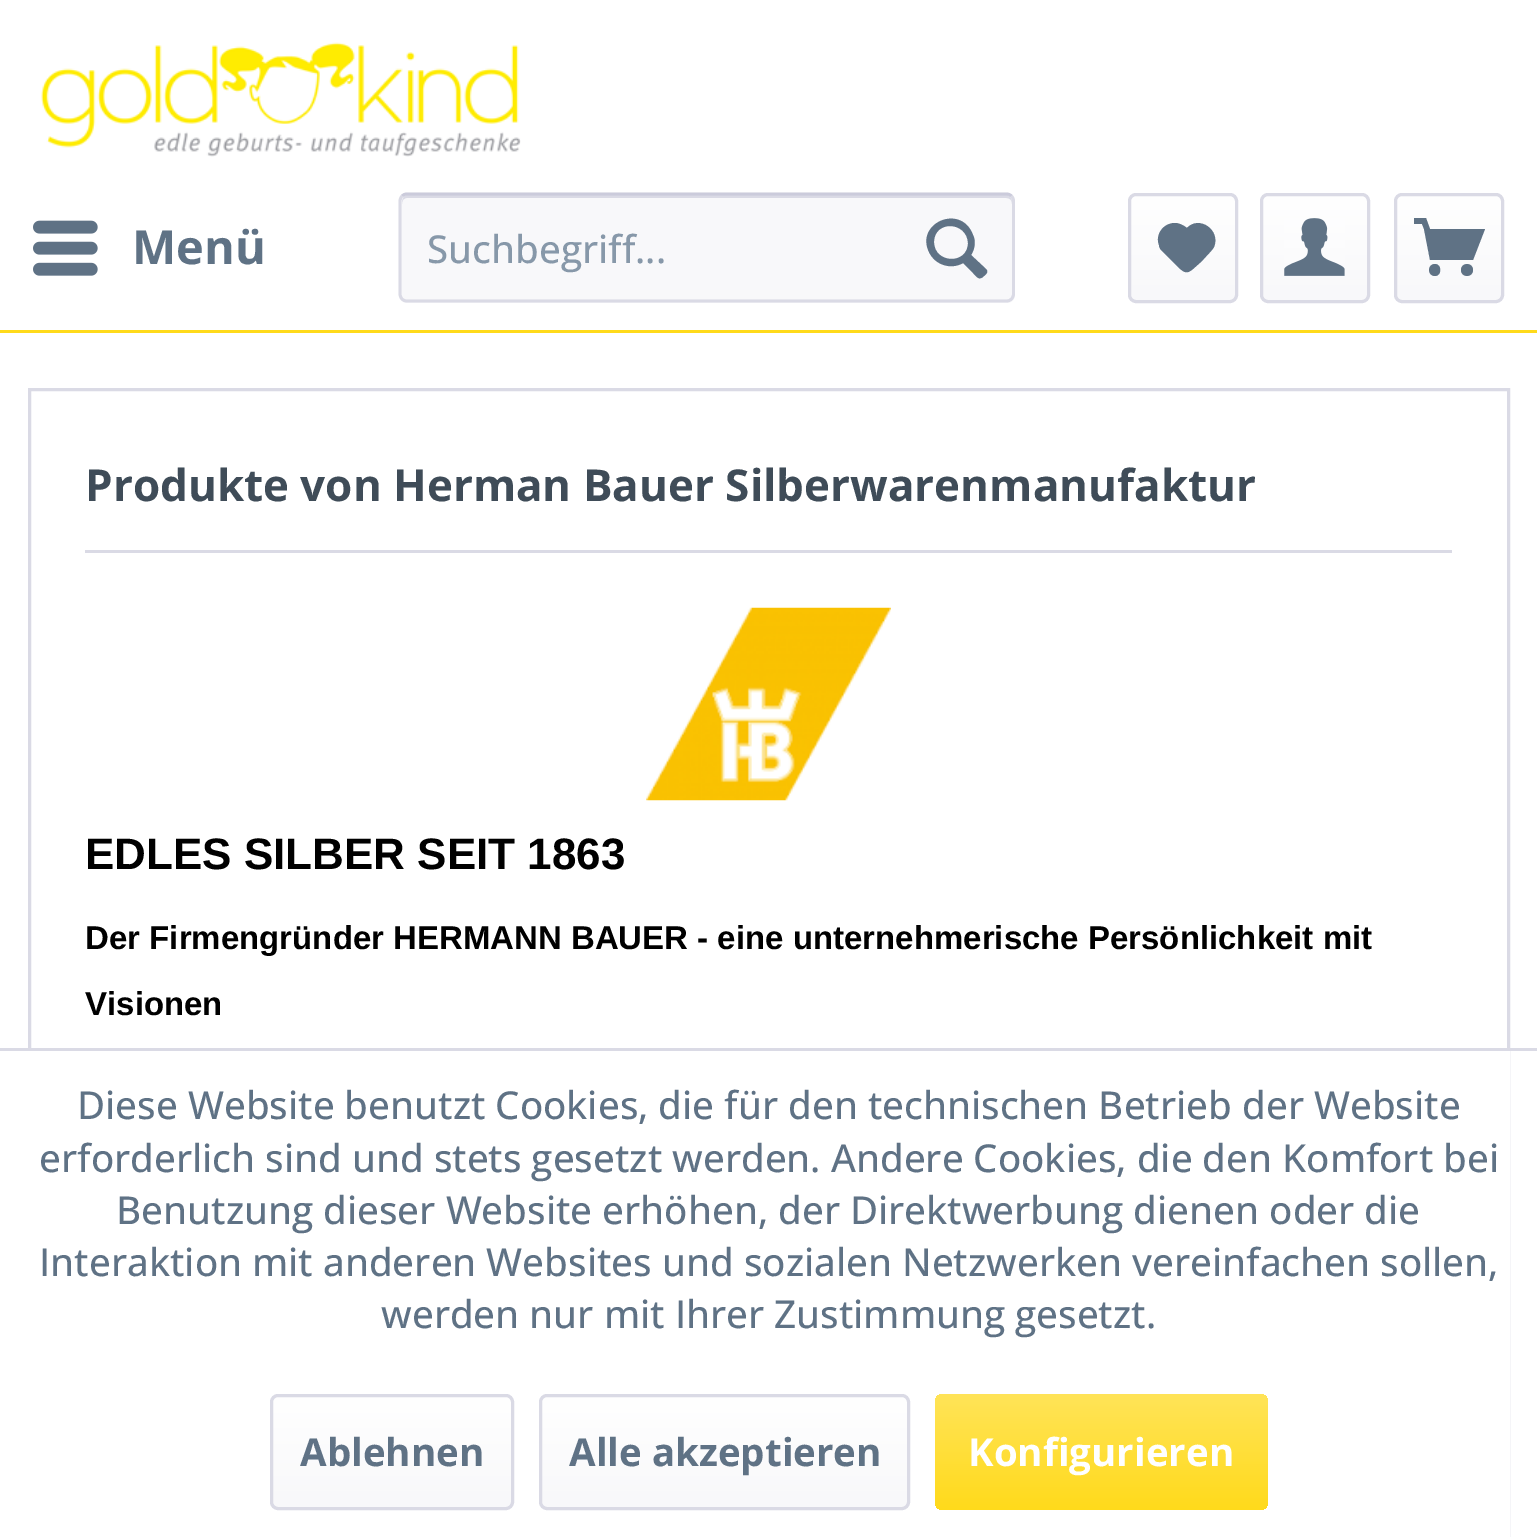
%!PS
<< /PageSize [1537 1537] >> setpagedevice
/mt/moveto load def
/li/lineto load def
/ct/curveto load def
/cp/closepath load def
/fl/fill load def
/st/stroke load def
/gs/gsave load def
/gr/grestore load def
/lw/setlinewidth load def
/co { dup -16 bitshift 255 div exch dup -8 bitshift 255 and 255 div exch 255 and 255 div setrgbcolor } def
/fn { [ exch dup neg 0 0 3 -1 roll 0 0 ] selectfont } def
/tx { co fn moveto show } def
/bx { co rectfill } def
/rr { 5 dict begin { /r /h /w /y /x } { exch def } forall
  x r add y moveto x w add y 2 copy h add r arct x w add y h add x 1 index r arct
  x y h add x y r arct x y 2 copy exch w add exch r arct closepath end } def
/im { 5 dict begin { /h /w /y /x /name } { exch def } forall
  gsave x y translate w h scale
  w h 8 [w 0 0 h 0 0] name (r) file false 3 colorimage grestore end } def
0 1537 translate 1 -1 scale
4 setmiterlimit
0 0 1537 1537 16#FFFFFF bx
0 330 1537 3 16#FFDA1B bx
(media/1.raw) 41 42 480 115 im
(media/2.raw) 33 220 65 56 im
16#F8F8FA co
399 193 616 110 8 rr fl
16#DADAE5 co
407 198 mt 1006 198 li 1010 198 1012 200 1012 204 ct 1012 200 1011 195 1006 195 ct 408 195 li 403 195 402 200 402 204 ct 402 200 404 198 407 198 ct cp fl
16#CBCBDB co
2.8 lw
402 196 mt 403.5 194.5 405 194 407 194 ct 1006.5 194 li 1008.5 194 1010 194.5 1011.5 196 ct st
16#DADAE5 co
1011.5 196 mt 1012.5 197 1013.5 199 1013.5 201 ct 1013.5 294 li 1013.5 296 1012.5 298 1011.5 299 ct 1010 300.5 1008.5 301 1006.5 301 ct 407 301 li 405 301 403.5 300.5 402 299 ct 401 298 400 296 400 294 ct 400 201 li 400 199 401 197 402 196 ct st
16#5F7285 co
986 269 mt 971 255 li 975 249 976 241 973 235 ct 961 203 915 223 929 252 ct 935 265 951 270 963 263 ct 973 273 li 977 277 979 281 984 276 ct 986 274 989 272 986 269 ct cp 934 242 mt 934 220 967 221 968 243 ct 968 265 934 264 934 242 ct cp fl
gs 1130 195 105 105 6 rr clip newpath
<< /ShadingType 2 /ColorSpace /DeviceRGB /Coords [1183 195 1183 300] /Extend [true true] /Function << /FunctionType 2 /Domain [0 1] /C0 [1 1 1] /C1 [.973 .973 .98] /N 1 >> >> shfill gr
16#DADAE5 co
3 lw
1129.5 194.5 107 107 6.5 rr st
16#5F7285 co
1175 223 mt 1163 223 1155 235 1159 245 ct 1159 248 1161 250 1162 251 ct 1179 268 li 1185 273 1187 274 1193 269 ct 1202 261 li 1206 256 1211 252 1214 247 ct 1221 230 1199 215 1187 228 ct 1183 225 1179 223 1175 223 ct cp fl
gs 1262 195 105 105 6 rr clip newpath
<< /ShadingType 2 /ColorSpace /DeviceRGB /Coords [1315 195 1315 300] /Extend [true true] /Function << /FunctionType 2 /Domain [0 1] /C0 [1 1 1] /C1 [.973 .973 .98] /N 1 >> >> shfill gr
16#DADAE5 co
1261.5 194.5 107 107 6.5 rr st
(media/3.raw) 1284 218 61 58 im
gs 1397 195 105 105 6 rr clip newpath
<< /ShadingType 2 /ColorSpace /DeviceRGB /Coords [1449 195 1449 300] /Extend [true true] /Function << /FunctionType 2 /Domain [0 1] /C0 [1 1 1] /C1 [.973 .973 .98] /N 1 >> >> shfill gr
1395.5 194.5 107 107 6.5 rr st
16#5F7285 co
1430 260 mt 1473 260 li 1485 229 li 1430 229 li 1426 218 li 1414 218 li 1414 224 li 1422 224 li 1424 229 li cp 1435 264 mt 1427 264 1427 276 1435 276 ct 1442 276 1442 264 1435 264 ct cp 1473 270 mt 1473 278 1461 278 1461 270 ct 1461 262 1473 262 1473 270 ct cp fl
16#DADAE5 co
29.5 389.5 1479 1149 rectstroke
85 550 1367 3 16#DADAE5 bx
(media/4.raw) 646 607 245 194 im
28 1051 1482 486 16#FFFFFF bx
0 1048 1537 3 16#DADAE5 bx
gs 272 1397 240 110 6 rr clip newpath
<< /ShadingType 2 /ColorSpace /DeviceRGB /Coords [392 1397 392 1507] /Extend [true true] /Function << /FunctionType 2 /Domain [0 1] /C0 [1 1 1] /C1 [.973 .973 .98] /N 1 >> >> shfill gr
271.5 1395.5 241 113 6.5 rr st
gs 542 1397 366 110 6 rr clip newpath
<< /ShadingType 2 /ColorSpace /DeviceRGB /Coords [725 1397 725 1507] /Extend [true true] /Function << /FunctionType 2 /Domain [0 1] /C0 [1 1 1] /C1 [.973 .973 .98] /N 1 >> >> shfill gr
540.5 1395.5 368 113 6.5 rr st
gs 935 1394 333 116 8 rr clip newpath
<< /ShadingType 2 /ColorSpace /DeviceRGB /Coords [1101 1394 1101 1510] /Extend [true true] /Function << /FunctionType 2 /Domain [0 1] /C0 [1 .894 .345] /C1 [1 .855 .106] /N 1 >> >> shfill gr
(Menü) 132 264 /OpenSans-Bold 47 16#5F7285 tx
(Suchbegriff...) 427 263 /OpenSans-Medium 38.5 16#8798A9 tx
(Produkte von Herman Bauer Silberwarenmanufaktur) 85 501 /OpenSans-Bold 44 16#3F4C58 tx
(EDLES SILBER SEIT 1863) 85 869 /LiberationSans-Bold 44 16#000000 tx
(Der Firmengründer HERMANN BAUER - eine unternehmerische Persönlichkeit mit) 85 949 /LiberationSans-Bold 33 16#000000 tx
(Visionen) 85 1015 /LiberationSans-Bold 33 16#000000 tx
(Diese Website benutzt Cookies, die für den technischen Betrieb der Website) 77 1119 /OpenSans-Medium 38.5 16#5F7285 tx
(erforderlich sind und stets gesetzt werden. Andere Cookies, die den Komfort bei) 39 1172 /OpenSans-Medium 38.5 16#5F7285 tx
(Benutzung dieser Website erhöhen, der Direktwerbung dienen oder die) 116 1224 /OpenSans-Medium 38.5 16#5F7285 tx
(Interaktion mit anderen Websites und sozialen Netzwerken vereinfachen sollen,) 39 1276 /OpenSans-Medium 38.5 16#5F7285 tx
(werden nur mit Ihrer Zustimmung gesetzt.) 381 1328 /OpenSans-Medium 38.5 16#5F7285 tx
(Ablehnen) 300 1466 /OpenSans-Bold 38.5 16#5F7285 tx
(Alle akzeptieren) 569 1466 /OpenSans-Bold 38.5 16#5F7285 tx
(Konfigurieren) 968 1466 /OpenSans-Bold 38.5 16#FFFFFF tx
showpage
